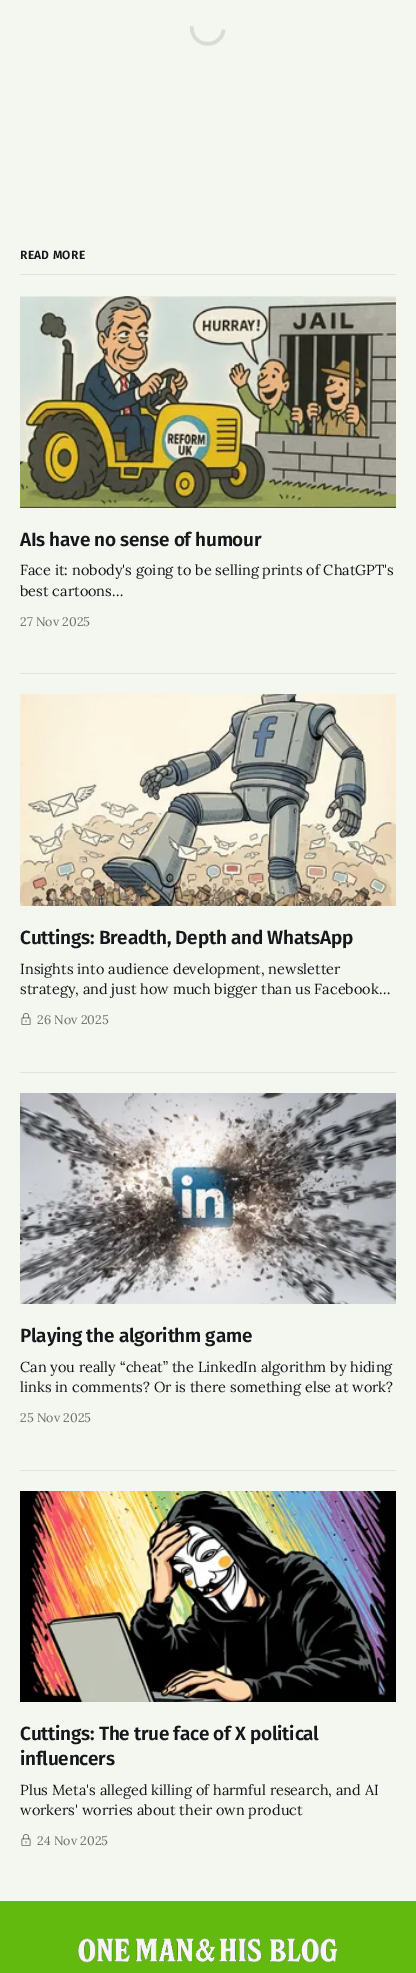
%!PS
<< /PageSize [416 1973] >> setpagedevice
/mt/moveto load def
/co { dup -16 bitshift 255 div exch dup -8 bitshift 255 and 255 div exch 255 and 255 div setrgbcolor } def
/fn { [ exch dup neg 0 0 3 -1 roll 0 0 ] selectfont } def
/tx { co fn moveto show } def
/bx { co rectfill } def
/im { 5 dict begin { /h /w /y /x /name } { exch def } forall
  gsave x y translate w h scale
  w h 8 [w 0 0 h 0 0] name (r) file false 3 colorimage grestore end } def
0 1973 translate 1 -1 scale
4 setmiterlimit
0 0 416 1973 16#F3F7EF bx
(media/1.raw) 190 26 36 20 im
20 274 376 1 16#E0E3DC bx
(media/2.raw) 20 296 376 212 im
20 673 376 1 16#E0E3DC bx
(media/3.raw) 20 694 376 212 im
(media/4.raw) 21 1013 10 12 im
20 1072 376 1 16#E0E3DC bx
(media/5.raw) 20 1093 376 211 im
20 1470 376 1 16#E0E3DC bx
(media/6.raw) 20 1491 376 211 im
(media/4.raw) 21 1834 10 12 im
0 1901 416 72 16#61BA0D bx
(media/7.raw) 77 1938 261 25 im
/FiraSans-SemiBold 12 fn
16#15171A co
20 259 mt .25 0 (READ MORE) ashow
/FiraSans-SemiBold 19 fn
20 546 mt -.25 0 (AIs have no sense of humour) ashow
(Face it: nobody's going to be selling prints of ChatGPT's) 20 575 /Lora-Regular 14.5 16#15171A tx
(best cartoons…) 20 596 /Lora-Regular 14.5 16#15171A tx
(27 Nov 2025) 20 626 /Lora-Regular 12.5 16#6D6F6C tx
/FiraSans-SemiBold 19 fn
16#15171A co
20 944 mt -.25 0 (Cuttings: Breadth, Depth and WhatsApp) ashow
(Insights into audience development, newsletter) 20 974 /Lora-Regular 14.5 16#15171A tx
(strategy, and just how much bigger than us Facebook…) 20 994 /Lora-Regular 14.5 16#15171A tx
(26 Nov 2025) 37 1024 /Lora-Regular 12.5 16#6D6F6C tx
/FiraSans-SemiBold 19 fn
16#15171A co
20 1342 mt -.25 0 (Playing the algorithm game) ashow
(Can you really “cheat” the LinkedIn algorithm by hiding) 20 1372 /Lora-Regular 14.5 16#15171A tx
(links in comments? Or is there something else at work?) 20 1392 /Lora-Regular 14.5 16#15171A tx
(25 Nov 2025) 20 1422 /Lora-Regular 12.5 16#6D6F6C tx
/FiraSans-SemiBold 19 fn
16#15171A co
20 1740 mt -.25 0 (Cuttings: The true face of X political) ashow
20 1765 mt -.25 0 (influencers) ashow
(Plus Meta's alleged killing of harmful research, and AI) 20 1795 /Lora-Regular 14.5 16#15171A tx
(workers' worries about their own product) 20 1815 /Lora-Regular 14.5 16#15171A tx
(24 Nov 2025) 37 1845 /Lora-Regular 12.5 16#6D6F6C tx
showpage
